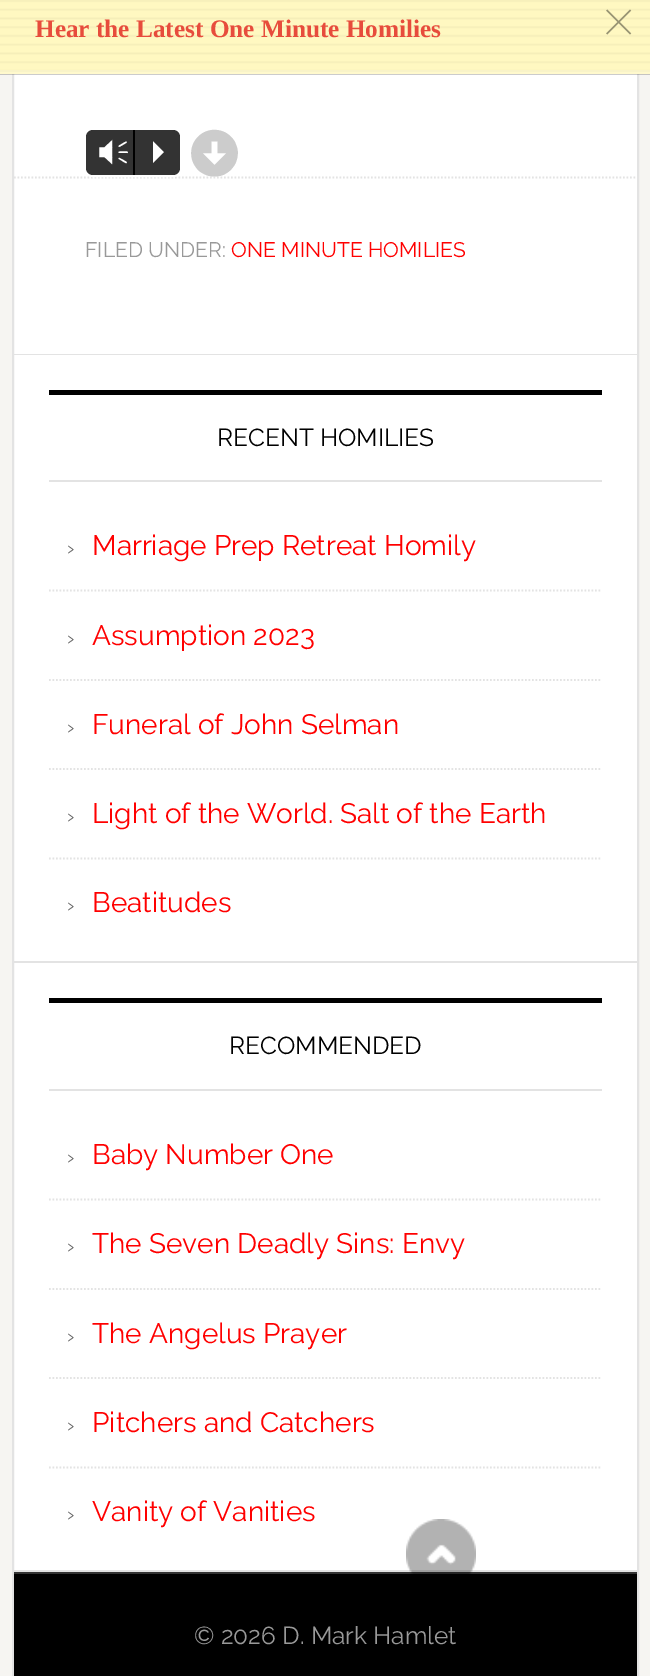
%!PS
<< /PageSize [650 1676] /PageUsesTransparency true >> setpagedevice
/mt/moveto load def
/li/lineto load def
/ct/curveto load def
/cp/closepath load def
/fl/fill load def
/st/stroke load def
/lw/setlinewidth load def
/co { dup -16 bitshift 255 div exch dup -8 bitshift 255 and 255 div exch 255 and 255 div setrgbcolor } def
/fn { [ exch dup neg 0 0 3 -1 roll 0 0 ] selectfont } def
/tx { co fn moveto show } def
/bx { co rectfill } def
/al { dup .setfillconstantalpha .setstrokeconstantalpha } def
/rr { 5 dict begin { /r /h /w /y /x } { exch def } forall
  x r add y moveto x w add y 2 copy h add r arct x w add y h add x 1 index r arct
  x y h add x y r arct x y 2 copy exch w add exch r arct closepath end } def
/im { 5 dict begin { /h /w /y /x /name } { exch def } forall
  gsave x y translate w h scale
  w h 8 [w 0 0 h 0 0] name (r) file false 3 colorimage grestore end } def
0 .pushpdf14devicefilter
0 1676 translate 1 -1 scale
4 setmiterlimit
0 0 650 1676 16#F6F5F2 bx
14 74 623 1496 16#FFFFFF bx
16#E3E3E3 co
2 lw
13 -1 625 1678 rectstroke
0.2 al
0 74 650 1 16#000000 bx
1 al
0 0 650 74 16#FFF8C1 bx
(media/1.raw) 0 0 650 72 im
0.2 al
0 70 650 4 16#FFFFFF bx
1 al
14 354 623 1 16#E3E3E3 bx
1.8 lw
[1.75 1.75] 0 setdash
14 177.5 mt 637 177.5 li st
16#FFFFFF co
2 lw
[] 0 setdash
85 129 96 47 8 rr st
16#333333 co
93 130 mt 133 130 li 133 175 li 93 175 li 89 175 86 172 86 168 ct 86 137 li 86 133 89 130 93 130 ct cp fl
133 130 mt 173 130 li 177 130 180 133 180 137 ct 180 168 li 180 172 177 175 173 175 ct 133 175 li cp fl
133 130 2 45 16#000000 bx
14 961 623 2 16#E3E3E3 bx
49 390 553 5 16#000000 bx
49 480 553 2 16#E3E3E3 bx
1.8 lw
[1.75 1.75] 0 setdash
49 590.5 mt 602 590.5 li st
49 680 mt 602 680 li st
49 769 mt 602 769 li st
49 858.5 mt 602 858.5 li st
14 1570 623 2 16#E3E3E3 bx
49 998 553 5 16#000000 bx
49 1089 553 2 16#E3E3E3 bx
49 1199.5 mt 602 1199.5 li st
49 1289 mt 602 1289 li st
49 1378 mt 602 1378 li st
49 1467.5 mt 602 1467.5 li st
14 1574 623 102 16#000000 bx
14 1572 623 2 16#333333 bx
(media/2.raw) 406 1519 70 55 im
(Hear the Latest One Minute Homilies) 35 37 /LiberationSerif-Bold 25.25 16#E74C3C tx
(c) 606 33 /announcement-Regular 25.25 16#989473 tx
(Vm) 97 163 /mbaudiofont-Regular 35 16#FFFFFF tx
(P) 140 163 /mbaudiofont-Regular 35 16#FFFFFF tx
(d) 191 179 /mbaudiofont-Regular 88 16#CCCCCC tx
(FILED UNDER:) 85 257 /Raleway-Regular 21 16#999999 tx
(ONE MINUTE HOMILIES) 231 257 /Raleway-Regular 21 16#FF0000 tx
(RECENT HOMILIES) 217 446 /Raleway-Regular 24.5 16#000000 tx
(›) 67 555 /Raleway-Regular 21 16#666666 tx
(Marriage Prep Retreat Homily) 92 555 /Raleway-Regular 28 16#FF0000 tx
(›) 67 645 /Raleway-Regular 21 16#666666 tx
(Assumption 2023) 92 645 /Raleway-Regular 28 16#FF0000 tx
(›) 67 734 /Raleway-Regular 21 16#666666 tx
(Funeral of John Selman) 92 734 /Raleway-Regular 28 16#FF0000 tx
(›) 67 823 /Raleway-Regular 21 16#666666 tx
(Light of the World. Salt of the Earth) 92 823 /Raleway-Regular 28 16#FF0000 tx
(›) 67 912 /Raleway-Regular 21 16#666666 tx
(Beatitudes) 92 912 /Raleway-Regular 28 16#FF0000 tx
(RECOMMENDED) 229 1054 /Raleway-Regular 24.5 16#000000 tx
(›) 67 1164 /Raleway-Regular 21 16#666666 tx
(Baby Number One) 92 1164 /Raleway-Regular 28 16#FF0000 tx
(›) 67 1253 /Raleway-Regular 21 16#666666 tx
(The Seven Deadly Sins: Envy) 92 1253 /Raleway-Regular 28 16#FF0000 tx
(›) 67 1343 /Raleway-Regular 21 16#666666 tx
(The Angelus Prayer) 92 1343 /Raleway-Regular 28 16#FF0000 tx
(›) 67 1432 /Raleway-Regular 21 16#666666 tx
(Pitchers and Catchers) 92 1432 /Raleway-Regular 28 16#FF0000 tx
(›) 67 1521 /Raleway-Regular 21 16#666666 tx
(Vanity of Vanities) 92 1521 /Raleway-Regular 28 16#FF0000 tx
(© 2026 D. Mark Hamlet) 194 1644 /Raleway-Regular 24.5 16#999999 tx
.poppdf14devicefilter showpage
